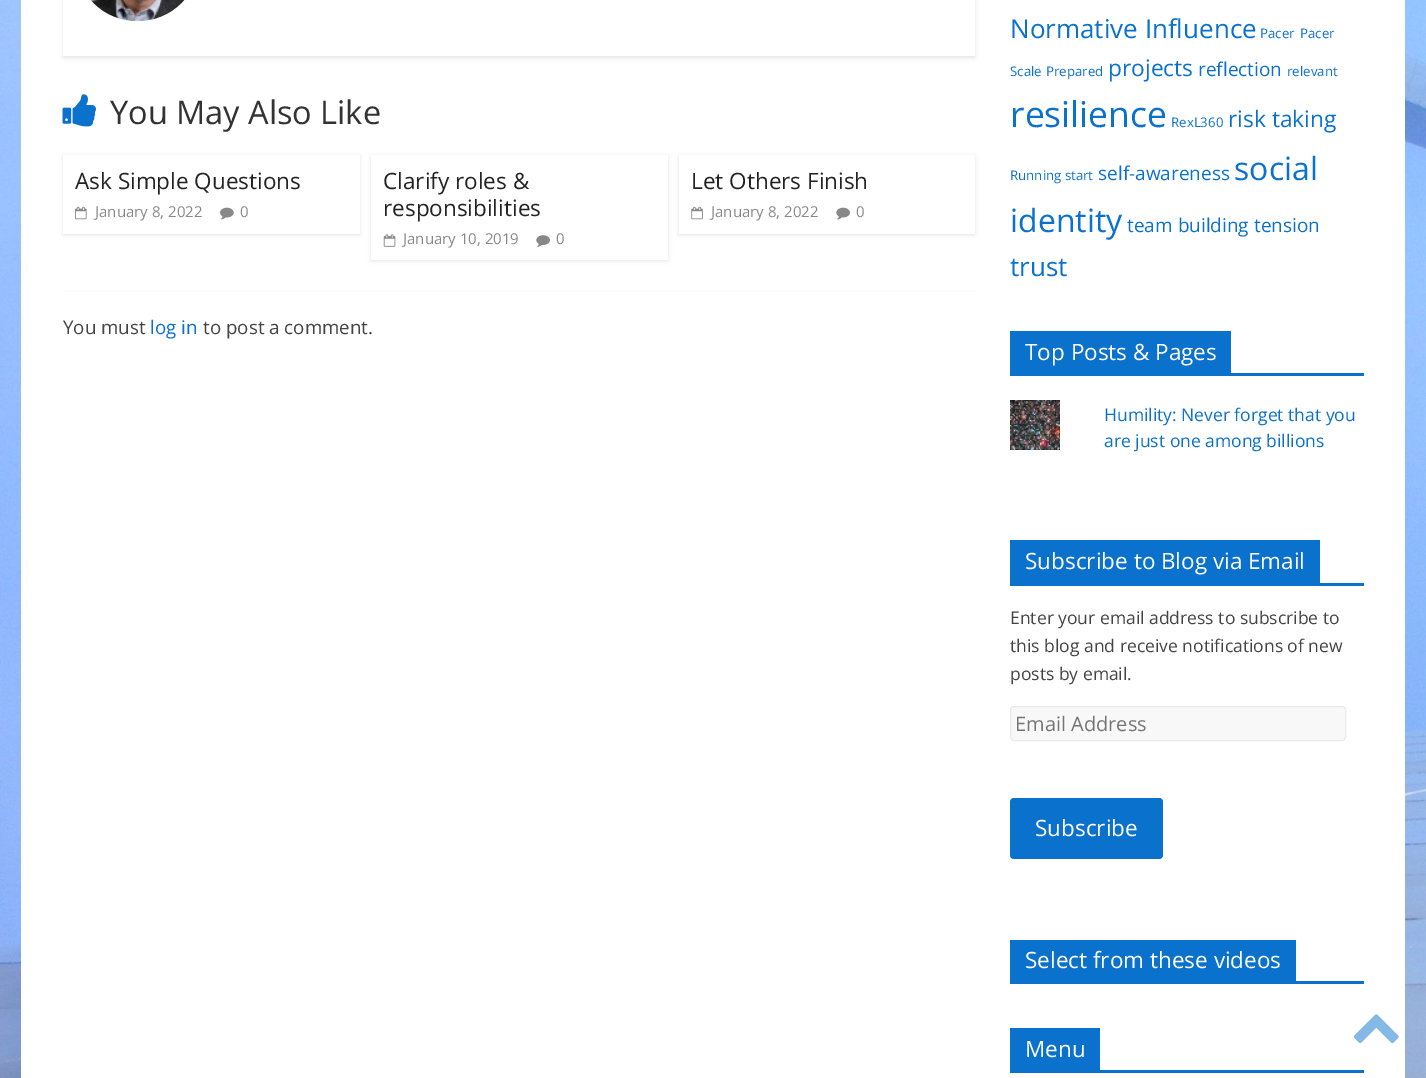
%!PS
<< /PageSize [1426 1078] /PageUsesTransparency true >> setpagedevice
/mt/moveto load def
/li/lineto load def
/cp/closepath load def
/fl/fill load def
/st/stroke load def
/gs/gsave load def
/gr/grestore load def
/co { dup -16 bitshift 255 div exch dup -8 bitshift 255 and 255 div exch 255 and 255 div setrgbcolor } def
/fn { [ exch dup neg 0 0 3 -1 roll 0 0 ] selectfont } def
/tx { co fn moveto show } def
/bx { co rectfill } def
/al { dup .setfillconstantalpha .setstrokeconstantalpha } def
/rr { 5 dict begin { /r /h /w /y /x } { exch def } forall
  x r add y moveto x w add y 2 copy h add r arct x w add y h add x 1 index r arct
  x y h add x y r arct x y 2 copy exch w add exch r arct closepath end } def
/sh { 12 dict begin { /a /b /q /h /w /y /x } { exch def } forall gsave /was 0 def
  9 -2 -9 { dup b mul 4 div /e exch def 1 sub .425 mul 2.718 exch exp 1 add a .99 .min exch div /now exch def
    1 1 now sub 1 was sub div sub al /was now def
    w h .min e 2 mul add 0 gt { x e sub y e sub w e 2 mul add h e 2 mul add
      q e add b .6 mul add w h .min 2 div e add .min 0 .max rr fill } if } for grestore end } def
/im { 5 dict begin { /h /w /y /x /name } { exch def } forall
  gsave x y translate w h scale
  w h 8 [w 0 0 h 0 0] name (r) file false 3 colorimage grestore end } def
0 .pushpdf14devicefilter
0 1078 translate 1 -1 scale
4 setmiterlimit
0 0 1426 1078 16#FFFFFF bx
(media/1.raw) 0 0 1426 1078 im
21 0 1384 1078 16#FFFFFF bx
gs
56 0 mt 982 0 li 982 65 li 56 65 li cp 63 -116 mt 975 -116 li 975 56 li 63 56 li cp eoclip newpath
16#000000 co
63 -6 912 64 0 2 .1 sh
gr
(media/2.raw) 90 0 95 22 im
(media/3.raw) 62 94 34 33 im
gs
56 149 mt 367 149 li 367 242 li 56 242 li cp 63 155 mt 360 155 li 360 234 li 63 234 li cp eoclip newpath
16#000000 co
63 156 297 79 0 2 .1 sh
gr
(media/4.raw) 75 206 12 14 im
(media/5.raw) 220 207 14 13 im
gs
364 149 mt 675 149 li 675 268 li 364 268 li cp 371 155 mt 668 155 li 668 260 li 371 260 li cp eoclip newpath
16#000000 co
371 156 297 105 0 2 .1 sh
gr
(media/6.raw) 383 234 13 13 im
(media/7.raw) 536 235 14 12 im
gs
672 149 mt 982 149 li 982 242 li 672 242 li cp 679 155 mt 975 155 li 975 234 li 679 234 li cp eoclip newpath
16#000000 co
679 156 296 79 0 2 .1 sh
gr
(media/8.raw) 691 206 12 14 im
(media/9.raw) 836 207 14 13 im
63 291 912 1 16#F8F8F8 bx
1010 373 354 3 16#0A71CC bx
1010 331 221 42 16#0A71CC bx
(media/10.raw) 1010 400 50 50 im
1010 583 354 3 16#0A71CC bx
1010 540 310 43 16#0A71CC bx
16#F8F8F8 co
1010.5 706.5 335 34 3.5 rr gs fl gr
16#EAEAEA co
st
16#0A71CC co
1010 798 153 61 4 rr fl
1010 981 354 3 16#0A71CC bx
1010 940 286 41 16#0A71CC bx
1010 1070 354 3 16#0A71CC bx
1010 1028 90 42 16#0A71CC bx
(media/11.raw) 1353 1014 46 30 im
(You May Also Like) 110 124 /OpenSans-Regular 32.5 16#333333 tx
(Ask Simple Questions) 75 189 /OpenSans-Regular 22.5 16#232323 tx
(January 8, 2022) 95 217 /OpenSans-Regular 15 16#888888 tx
(0) 240 217 /OpenSans-Regular 15 16#888888 tx
(Clarify roles &) 383 189 /OpenSans-Regular 22.5 16#232323 tx
(responsibilities) 383 216 /OpenSans-Regular 22.5 16#232323 tx
(January 10, 2019) 403 244 /OpenSans-Regular 15 16#888888 tx
(0) 556 244 /OpenSans-Regular 15 16#888888 tx
(Let Others Finish) 691 189 /OpenSans-Regular 22.5 16#232323 tx
(January 8, 2022) 711 217 /OpenSans-Regular 15 16#888888 tx
(0) 856 217 /OpenSans-Regular 15 16#888888 tx
(You must) 63 334 /OpenSans-Regular 18.75 16#444444 tx
(log in) 150 334 /OpenSans-Regular 18.75 16#0A71CC tx
(to post a comment.) 203 334 /OpenSans-Regular 18.75 16#444444 tx
(Normative Influence) 1010 38 /OpenSans-Regular 26 16#0A71CC tx
(Pacer) 1260 38 /OpenSans-Regular 13.25 16#0A71CC tx
(Pacer) 1300 38 /OpenSans-Regular 13.25 16#0A71CC tx
(Scale) 1010 76 /OpenSans-Regular 13.25 16#0A71CC tx
(Prepared) 1046 76 /OpenSans-Regular 13.25 16#0A71CC tx
(projects) 1108 76 /OpenSans-Regular 22.75 16#0A71CC tx
(reflection) 1198 76 /OpenSans-Regular 19 16#0A71CC tx
(relevant) 1287 76 /OpenSans-Regular 13.25 16#0A71CC tx
(resilience) 1010 127 /OpenSans-Regular 35.5 16#0A71CC tx
(RexL360) 1171 127 /OpenSans-Regular 13.25 16#0A71CC tx
(risk taking) 1228 127 /OpenSans-Regular 22.75 16#0A71CC tx
(Running start) 1010 180 /OpenSans-Regular 13.25 16#0A71CC tx
(self-awareness) 1098 180 /OpenSans-Regular 19 16#0A71CC tx
(social) 1234 180 /OpenSans-Regular 32 16#0A71CC tx
(identity) 1010 232 /OpenSans-Regular 32 16#0A71CC tx
(team building) 1127 232 /OpenSans-Regular 19 16#0A71CC tx
(tension) 1254 232 /OpenSans-Regular 19 16#0A71CC tx
(trust) 1010 276 /OpenSans-Regular 26 16#0A71CC tx
(Top Posts & Pages) 1025 360 /OpenSans-Regular 22.5 16#FFFFFF tx
(Humility: Never forget that you) 1104 421 /OpenSans-Regular 17.5 16#0A71CC tx
(are just one among billions) 1104 447 /OpenSans-Regular 17.5 16#0A71CC tx
(Subscribe to Blog via Email) 1025 569 /OpenSans-Regular 22.5 16#FFFFFF tx
(Enter your email address to subscribe to) 1010 624 /OpenSans-Regular 17.5 16#444444 tx
(this blog and receive notifications of new) 1010 652 /OpenSans-Regular 17.5 16#444444 tx
(posts by email.) 1010 680 /OpenSans-Regular 17.5 16#444444 tx
(Email Address) 1015 731 /OpenSans-Regular 20 16#757575 tx
(Subscribe) 1035 836 /OpenSans-Regular 22.5 16#FFFFFF tx
(Select from these videos) 1025 968 /OpenSans-Regular 22.5 16#FFFFFF tx
(Menu) 1025 1057 /OpenSans-Regular 22.5 16#FFFFFF tx
.poppdf14devicefilter showpage
